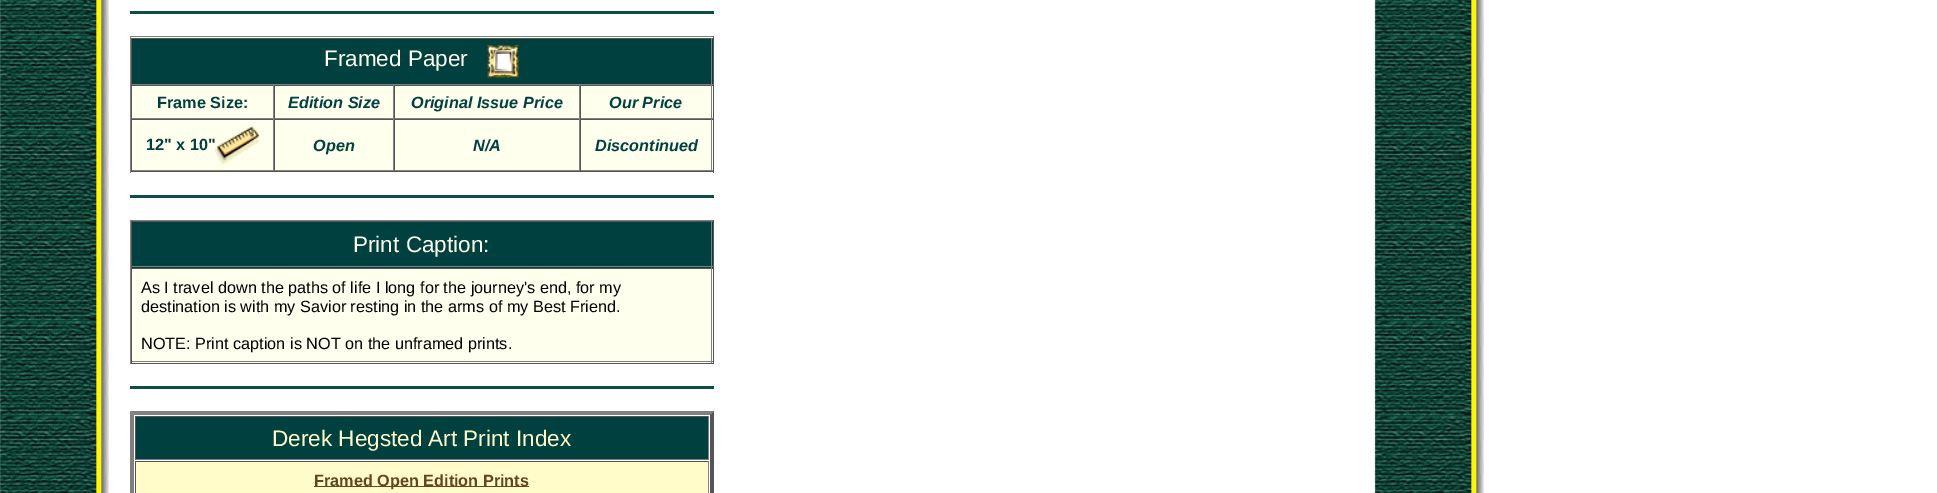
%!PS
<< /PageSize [1937 493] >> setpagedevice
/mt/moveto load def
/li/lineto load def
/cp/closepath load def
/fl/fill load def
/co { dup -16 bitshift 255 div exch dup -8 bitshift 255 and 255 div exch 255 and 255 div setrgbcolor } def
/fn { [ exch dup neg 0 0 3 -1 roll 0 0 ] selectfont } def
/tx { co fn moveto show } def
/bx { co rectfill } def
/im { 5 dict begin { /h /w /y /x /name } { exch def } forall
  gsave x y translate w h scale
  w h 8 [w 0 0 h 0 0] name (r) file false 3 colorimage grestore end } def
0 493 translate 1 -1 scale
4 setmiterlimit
0 0 1937 493 16#FFFFFF bx
(media/1.raw) 0 0 1484 493 im
130 11 584 3 16#0F4D4C bx
131 37 582 136 16#FFFFEE bx
130 36 584 1 16#808080 bx
713 36 1 137 16#555555 bx
130 171 584 1 16#555555 bx
130 36 1 137 16#808080 bx
132 39 581 45 16#004140 bx
131 38 582 1 16#555555 bx
711 38 1 47 16#808080 bx
131 84 582 1 16#808080 bx
131 38 1 47 16#555555 bx
(media/2.raw) 487 45 32 33 im
131 85 582 1 16#555555 bx
273 85 1 34 16#808080 bx
131 118 143 1 16#808080 bx
131 85 1 34 16#555555 bx
393 85 1 34 16#808080 bx
274 118 120 1 16#808080 bx
274 85 1 34 16#555555 bx
579 85 1 34 16#808080 bx
394 118 186 1 16#808080 bx
394 85 1 34 16#555555 bx
711 85 1 34 16#808080 bx
580 118 133 1 16#808080 bx
580 85 1 34 16#555555 bx
131 119 582 1 16#555555 bx
273 119 1 52 16#808080 bx
131 170 143 1 16#808080 bx
131 119 1 52 16#555555 bx
(media/3.raw) 215 126 44 38 im
393 119 1 52 16#808080 bx
274 170 120 1 16#808080 bx
274 119 1 52 16#555555 bx
579 119 1 52 16#808080 bx
394 170 186 1 16#808080 bx
394 119 1 52 16#555555 bx
711 119 1 52 16#808080 bx
580 170 133 1 16#808080 bx
580 119 1 52 16#555555 bx
130 195 584 3 16#0F4D4C bx
132 269 581 94 16#FFFFEE bx
130 220 584 1 16#808080 bx
713 220 1 144 16#555555 bx
130 363 584 1 16#555555 bx
130 220 1 144 16#808080 bx
132 222 581 46 16#004140 bx
131 221 582 1 16#555555 bx
711 221 1 47 16#808080 bx
131 266 582 1 16#808080 bx
131 221 1 47 16#555555 bx
131 268 582 1 16#555555 bx
711 268 1 95 16#808080 bx
131 361 582 1 16#808080 bx
131 268 1 95 16#555555 bx
130 386 584 3 16#0F4D4C bx
16#808080 co
130 411 mt 714 411 li 710 415 li 134 415 li cp fl
16#555555 co
714 411 mt 714 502 li 710 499 li 710 415 li cp fl
16#808080 co
130 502 mt 130 411 li 134 415 li 134 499 li cp fl
136 417 572 42 16#004140 bx
135 416 574 1 16#555555 bx
708 416 1 44 16#808080 bx
135 459 574 1 16#808080 bx
135 416 1 44 16#555555 bx
136 462 572 31 16#FFFCCA bx
135 461 574 1 16#555555 bx
708 461 1 32 16#808080 bx
135 461 1 32 16#555555 bx
314 486 215 1 16#654422 bx
(Framed Paper) 324 66 /LiberationSans-Regular 22.5 16#FFFFEE tx
(Frame Size:) 157 108 /LiberationSans-Bold 16.25 16#004140 tx
(Edition Size) 288 108 /LiberationSans-BoldItalic 16.25 16#004140 tx
(Original Issue Price) 411 108 /LiberationSans-BoldItalic 16.25 16#004140 tx
(Our Price) 609 108 /LiberationSans-BoldItalic 16.25 16#004140 tx
(12" x 10") 146 150 /LiberationSans-Bold 16.25 16#004140 tx
(Open) 313 151 /LiberationSans-BoldItalic 16.25 16#004140 tx
(N/A) 473 151 /LiberationSans-BoldItalic 16.25 16#004140 tx
(Discontinued) 595 151 /LiberationSans-BoldItalic 16.25 16#004140 tx
(Print Caption:) 353 252 /LiberationSans-Regular 22.5 16#FFFFEE tx
(As I travel down the paths of life I long for the journey's end, for my) 141 293 /LiberationSans-Regular 16.25 16#000000 tx
(destination is with my Savior resting in the arms of my Best Friend.) 141 312 /LiberationSans-Regular 16.25 16#000000 tx
(NOTE: Print caption is NOT on the unframed prints.) 141 349 /LiberationSans-Regular 16.25 16#000000 tx
(Derek Hegsted Art Print Index) 272 446 /LiberationSans-Regular 22.5 16#FFFCCA tx
(Framed Open Edition Prints) 314 486 /LiberationSans-Bold 16.25 16#654422 tx
showpage
